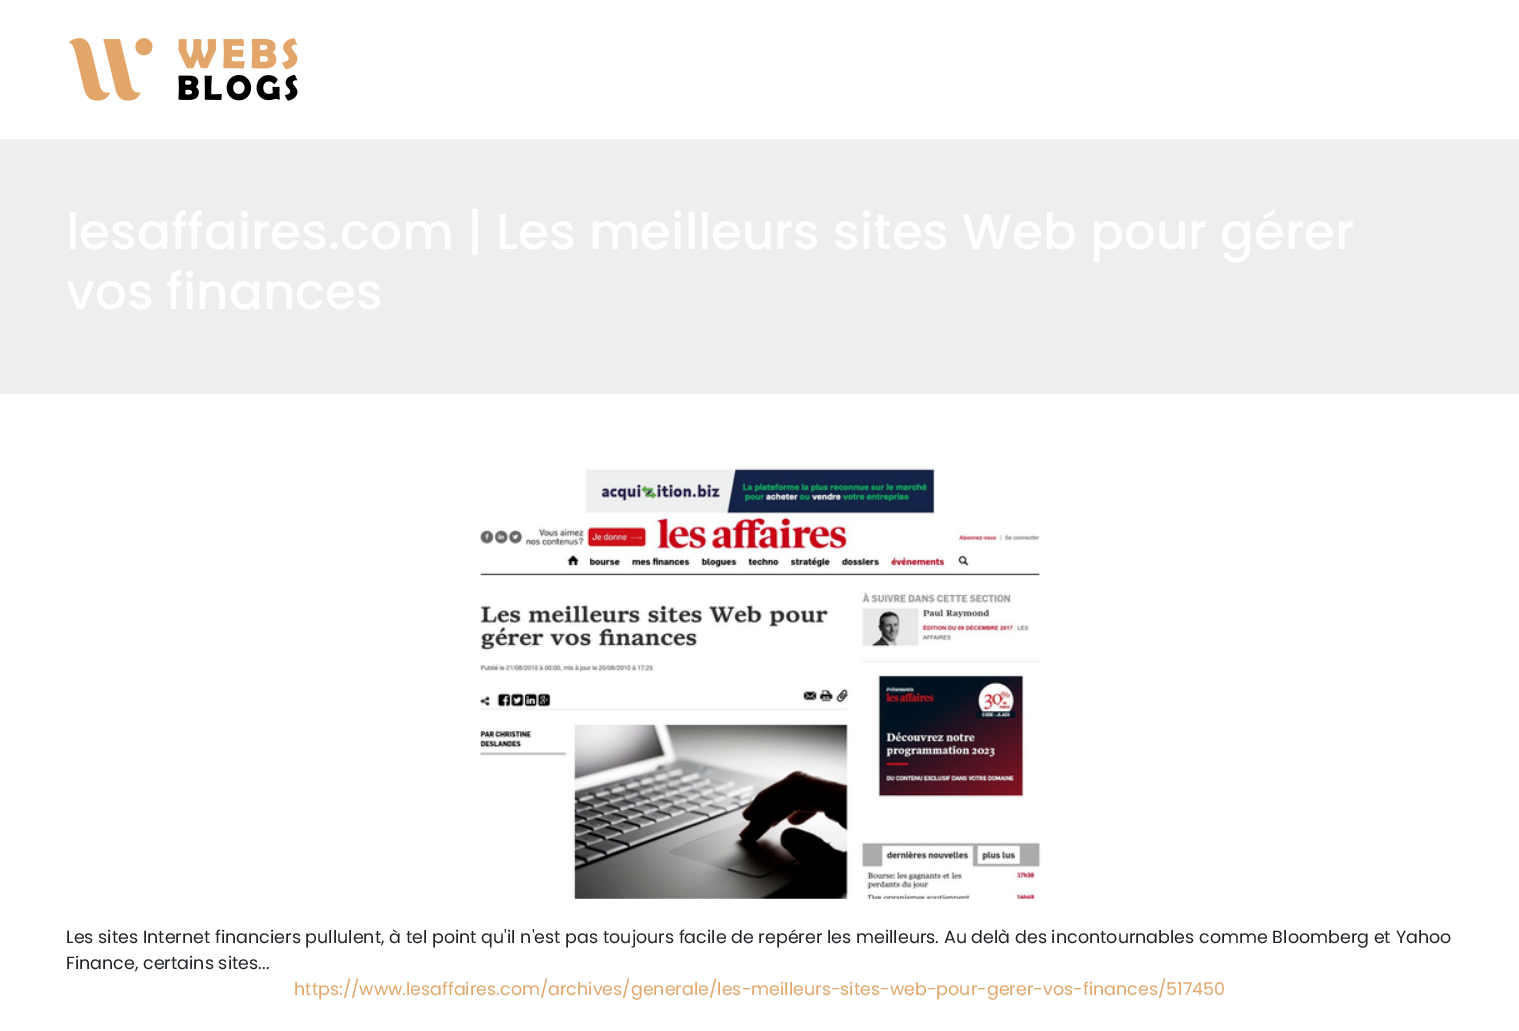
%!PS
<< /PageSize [1519 1031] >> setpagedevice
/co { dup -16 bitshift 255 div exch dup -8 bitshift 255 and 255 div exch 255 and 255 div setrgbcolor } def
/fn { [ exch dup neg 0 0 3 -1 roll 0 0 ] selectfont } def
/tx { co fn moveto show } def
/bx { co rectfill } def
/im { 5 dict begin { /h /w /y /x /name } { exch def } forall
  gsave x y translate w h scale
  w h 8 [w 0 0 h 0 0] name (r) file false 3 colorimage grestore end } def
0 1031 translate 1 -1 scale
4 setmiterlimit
0 0 1519 1031 16#FFFFFF bx
(media/1.raw) 69 38 229 63 im
0 139 1519 255 16#EEEEEE bx
(media/2.raw) 479 468 562 431 im
(lesaffaires.com | Les meilleurs sites Web pour gérer) 66 249 /Poppins-Medium 50 16#FFFFFF tx
(vos finances) 66 309 /Poppins-Medium 50 16#FFFFFF tx
(Les sites Internet financiers pullulent, à tel point qu'il n'est pas toujours facile de repérer les meilleurs. Au delà des incontournables comme Bloomberg et Yahoo) 66 943 /Poppins-Regular 17.5 16#212529 tx
(Finance, certains sites...) 66 969 /Poppins-Regular 17.5 16#212529 tx
(https://www.lesaffaires.com/archives/generale/les-meilleurs-sites-web-pour-gerer-vos-finances/517450) 294 995 /Poppins-Regular 17.5 16#E3A66A tx
showpage
